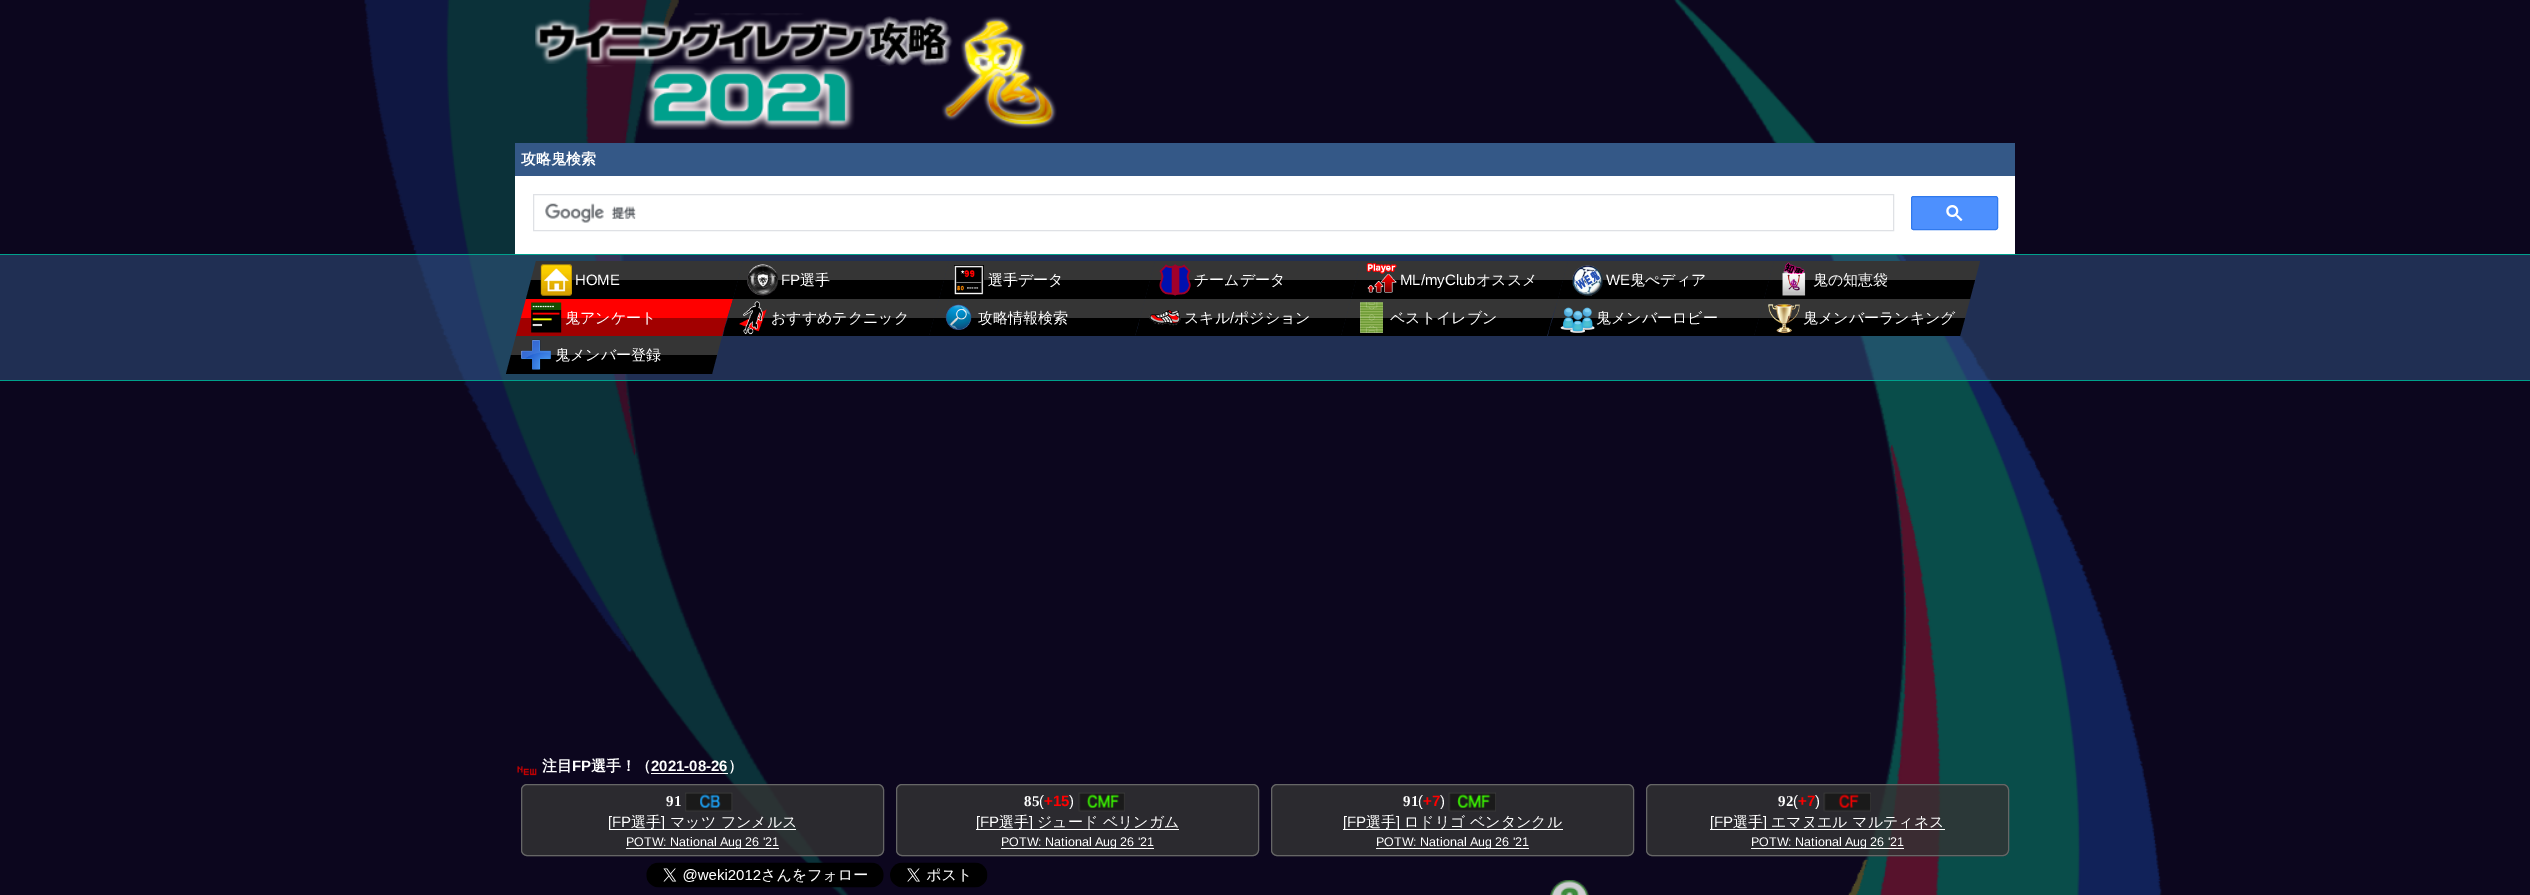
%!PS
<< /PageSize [2530 895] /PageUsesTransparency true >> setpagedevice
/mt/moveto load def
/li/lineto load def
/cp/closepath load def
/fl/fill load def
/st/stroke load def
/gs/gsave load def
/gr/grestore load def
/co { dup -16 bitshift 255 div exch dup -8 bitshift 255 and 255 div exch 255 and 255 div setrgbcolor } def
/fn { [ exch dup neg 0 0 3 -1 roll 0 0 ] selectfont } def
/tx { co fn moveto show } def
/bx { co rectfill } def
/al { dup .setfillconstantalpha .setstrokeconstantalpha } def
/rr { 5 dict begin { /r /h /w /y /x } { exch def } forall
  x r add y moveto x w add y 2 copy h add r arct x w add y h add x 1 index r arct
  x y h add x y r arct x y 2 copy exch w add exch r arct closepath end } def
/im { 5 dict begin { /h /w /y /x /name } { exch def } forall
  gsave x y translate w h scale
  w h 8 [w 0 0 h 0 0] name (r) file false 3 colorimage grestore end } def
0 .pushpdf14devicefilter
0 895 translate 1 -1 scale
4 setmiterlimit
0 0 2530 895 16#0C061E bx
(media/1.raw) 364 0 1798 895 im
(media/2.raw) 535 13 522 117 im
515 176 1500 78 16#FFFFFF bx
515 143 1500 33 16#345887 bx
16#DFE1E5 co
533.5 194.5 1360 36 rectstroke
(media/3.raw) 545 203 91 20 im
16#4D90FE co
1911.5 196.5 86 33 2 rr gs fl gr
16#3079ED co
st
(media/4.raw) 1946 205 17 16 im
0.5 al
0 255 2530 125 16#345887 bx
1 al
0 254 2530 1 16#00A08C bx
0 380 2530 1 16#00A08C bx
16#353535 co
536 261 mt 743 261 li 738 280 li 531 280 li cp fl
16#000000 co
738 280 mt 733 299 li 526 299 li 531 280 li cp fl
(media/5.raw) 540 264 32 32 im
16#353535 co
944 280 mt 738 280 li 743 261 li 949 261 li cp fl
16#000000 co
738 280 mt 944 280 li 939 299 li 733 299 li cp fl
(media/6.raw) 747 264 31 32 im
16#353535 co
1155 261 mt 1150 280 li 944 280 li 949 261 li cp fl
16#000000 co
944 280 mt 1150 280 li 1145 299 li 939 299 li cp fl
(media/7.raw) 954 265 30 30 im
16#353535 co
1155 261 mt 1361 261 li 1356 280 li 1150 280 li cp fl
16#000000 co
1351 299 mt 1145 299 li 1150 280 li 1356 280 li cp fl
(media/8.raw) 1159 264 32 32 im
16#353535 co
1361 261 mt 1568 261 li 1563 280 li 1356 280 li cp fl
16#000000 co
1563 280 mt 1558 299 li 1351 299 li 1356 280 li cp fl
(media/9.raw) 1366 263 31 30 im
16#353535 co
1769 280 mt 1563 280 li 1568 261 li 1774 261 li cp fl
16#000000 co
1563 280 mt 1769 280 li 1764 299 li 1558 299 li cp fl
(media/10.raw) 1572 265 31 31 im
16#353535 co
1980 261 mt 1975 280 li 1769 280 li 1774 261 li cp fl
16#000000 co
1769 280 mt 1975 280 li 1970 299 li 1764 299 li cp fl
(media/11.raw) 1782 262 24 34 im
16#FF0000 co
521 318 mt 526 299 li 733 299 li 727 318 li cp fl
16#A20000 co
516 336 mt 521 318 li 727 318 li 722 336 li cp fl
(media/12.raw) 531 302 31 31 im
16#353535 co
733 299 mt 939 299 li 934 318 li 728 318 li cp fl
16#000000 co
728 318 mt 934 318 li 929 336 li 723 336 li 725 327 li cp fl
(media/13.raw) 739 301 28 34 im
16#353535 co
939 299 mt 1145 299 li 1140 318 li 934 318 li cp fl
16#000000 co
934 318 mt 1140 318 li 1135 336 li 929 336 li cp fl
(media/14.raw) 945 304 27 26 im
16#353535 co
1145 299 mt 1351 299 li 1346 318 li 1140 318 li cp fl
16#000000 co
1140 318 mt 1346 318 li 1341 336 li 1135 336 li 1138 327 li cp fl
(media/15.raw) 1149 310 32 16 im
16#353535 co
1346 318 mt 1351 299 li 1558 299 li 1552 318 li cp fl
16#000000 co
1341 336 mt 1346 318 li 1552 318 li 1547 336 li cp fl
(media/16.raw) 1360 302 23 31 im
16#353535 co
1558 299 mt 1764 299 li 1759 318 li 1553 318 li cp fl
16#000000 co
1553 318 mt 1759 318 li 1754 336 li 1548 336 li 1550 327 li cp fl
(media/17.raw) 1560 307 35 26 im
16#353535 co
1764 299 mt 1970 299 li 1965 318 li 1759 318 li cp fl
16#000000 co
1759 318 mt 1965 318 li 1960 336 li 1754 336 li cp fl
(media/18.raw) 1768 304 32 29 im
16#353535 co
516 336 mt 722 336 li 717 355 li 511 355 li cp fl
16#000000 co
712 374 mt 506 374 li 511 355 li 717 355 li cp fl
(media/19.raw) 521 339 31 31 im
(media/20.raw) 517 766 20 10 im
651 773 77 1 16#FFFFFF bx
(media/21.raw) 521 784 363 73 im
16#666666 co
521.5 784.5 362 71 5.5 rr st
(media/22.raw) 685 792 48 20 im
609 829 187 1 16#FFFFFF bx
626 848 153 1 16#FFFFFF bx
(media/23.raw) 896 784 363 73 im
16#666666 co
896.5 784.5 362 71 5.5 rr st
(media/24.raw) 1078 792 47 20 im
976 829 203 1 16#FFFFFF bx
1001 848 153 1 16#FFFFFF bx
(media/23.raw) 1271 784 363 73 im
16#666666 co
1271.5 784.5 362 71 5.5 rr st
(media/25.raw) 1448 792 48 20 im
1343 829 220 1 16#FFFFFF bx
1376 848 153 1 16#FFFFFF bx
(media/26.raw) 1646 784 363 73 im
16#666666 co
1646.5 784.5 362 71 5.5 rr st
(media/27.raw) 1823 792 48 20 im
1710 829 235 1 16#FFFFFF bx
1751 848 153 1 16#FFFFFF bx
(media/28.raw) 646 862 238 26 im
(media/29.raw) 890 862 98 26 im
(media/30.raw) 1550 880 39 15 im
(攻略鬼検索) 521 164 /WenQuanYiZenHei-Bold 15 16#FFFFFF tx
(HOME) 575 285 /LiberationSans-Regular 15 16#FFFFFF tx
(FP) 781 285 /LiberationSans-Regular 15 16#FFFFFF tx
(選手) 800 285 /WenQuanYiZenHei-Medium 15 16#FFFFFF tx
(選手データ) 988 285 /WenQuanYiZenHei-Medium 15 16#FFFFFF tx
(チームデータ) 1194 285 /WenQuanYiZenHei-Medium 15 16#FFFFFF tx
(ML/myClub) 1400 285 /LiberationSans-Regular 15 16#FFFFFF tx
(オススメ) 1476 285 /WenQuanYiZenHei-Medium 15 16#FFFFFF tx
(WE) 1606 285 /LiberationSans-Regular 15 16#FFFFFF tx
(鬼ぺディア) 1630 285 /WenQuanYiZenHei-Medium 15 16#FFFFFF tx
(鬼の知恵袋) 1813 285 /WenQuanYiZenHei-Medium 15 16#FFFFFF tx
(鬼アンケート) 565 323 /WenQuanYiZenHei-Medium 15 16#FFFFFF tx
(おすすめテクニック) 771 323 /WenQuanYiZenHei-Medium 15 16#FFFFFF tx
(攻略情報検索) 978 323 /WenQuanYiZenHei-Medium 15 16#FFFFFF tx
(スキル) 1184 323 /WenQuanYiZenHei-Medium 15 16#FFFFFF tx
(/) 1230 323 /LiberationSans-Regular 15 16#FFFFFF tx
(ポジション) 1234 323 /WenQuanYiZenHei-Medium 15 16#FFFFFF tx
(ベストイレブン) 1390 323 /WenQuanYiZenHei-Medium 15 16#FFFFFF tx
(鬼メンバーロビー) 1596 323 /WenQuanYiZenHei-Medium 15 16#FFFFFF tx
(鬼メンバーランキング) 1803 323 /WenQuanYiZenHei-Medium 15 16#FFFFFF tx
(鬼メンバー登録) 555 360 /WenQuanYiZenHei-Medium 15 16#FFFFFF tx
(注目) 542 771 /WenQuanYiZenHei-Bold 15 16#FFFFFF tx
(FP) 572 771 /LiberationSans-Bold 15 16#FFFFFF tx
(選手！（) 591 771 /WenQuanYiZenHei-Bold 15 16#FFFFFF tx
(2021-08-26) 651 771 /LiberationSans-Bold 15 16#FFFFFF tx
(）) 728 771 /WenQuanYiZenHei-Bold 15 16#FFFFFF tx
(91) 666 806 /LiberationSerif-Bold 15 16#FFFFFF tx
([FP) 608 827 /LiberationSans-Regular 15 16#FFFFFF tx
(選手) 631 827 /WenQuanYiZenHei-Medium 15 16#FFFFFF tx
(]) 661 827 /LiberationSans-Regular 15 16#FFFFFF tx
(マッツ フンメルス) 670 827 /WenQuanYiZenHei-Medium 15 16#FFFFFF tx
(POTW: National Aug 26 '21) 626 846 /LiberationSans-Regular 12.5 16#FFFFFF tx
(85) 1024 806 /LiberationSerif-Bold 15 16#FFFFFF tx
(\() 1039 806 /LiberationSans-Regular 15 16#FFFFFF tx
(+15) 1044 806 /LiberationSans-Bold 15 16#FF0000 tx
(\)) 1069 806 /LiberationSans-Regular 15 16#FFFFFF tx
([FP) 976 827 /LiberationSans-Regular 15 16#FFFFFF tx
(選手) 999 827 /WenQuanYiZenHei-Medium 15 16#FFFFFF tx
(]) 1029 827 /LiberationSans-Regular 15 16#FFFFFF tx
(ジュード ベリンガム) 1037 827 /WenQuanYiZenHei-Medium 15 16#FFFFFF tx
(POTW: National Aug 26 '21) 1001 846 /LiberationSans-Regular 12.5 16#FFFFFF tx
(91) 1403 806 /LiberationSerif-Bold 15 16#FFFFFF tx
(\() 1418 806 /LiberationSans-Regular 15 16#FFFFFF tx
(+7) 1423 806 /LiberationSans-Bold 15 16#FF0000 tx
(\)) 1440 806 /LiberationSans-Regular 15 16#FFFFFF tx
([FP) 1343 827 /LiberationSans-Regular 15 16#FFFFFF tx
(選手) 1366 827 /WenQuanYiZenHei-Medium 15 16#FFFFFF tx
(]) 1396 827 /LiberationSans-Regular 15 16#FFFFFF tx
(ロドリゴ ベンタンクル) 1404 827 /WenQuanYiZenHei-Medium 15 16#FFFFFF tx
(POTW: National Aug 26 '21) 1376 846 /LiberationSans-Regular 12.5 16#FFFFFF tx
(92) 1778 806 /LiberationSerif-Bold 15 16#FFFFFF tx
(\() 1793 806 /LiberationSans-Regular 15 16#FFFFFF tx
(+7) 1798 806 /LiberationSans-Bold 15 16#FF0000 tx
(\)) 1815 806 /LiberationSans-Regular 15 16#FFFFFF tx
([FP) 1710 827 /LiberationSans-Regular 15 16#FFFFFF tx
(選手) 1733 827 /WenQuanYiZenHei-Medium 15 16#FFFFFF tx
(]) 1763 827 /LiberationSans-Regular 15 16#FFFFFF tx
(エマヌエル マルティネス) 1771 827 /WenQuanYiZenHei-Medium 15 16#FFFFFF tx
(POTW: National Aug 26 '21) 1751 846 /LiberationSans-Regular 12.5 16#FFFFFF tx
.poppdf14devicefilter showpage
